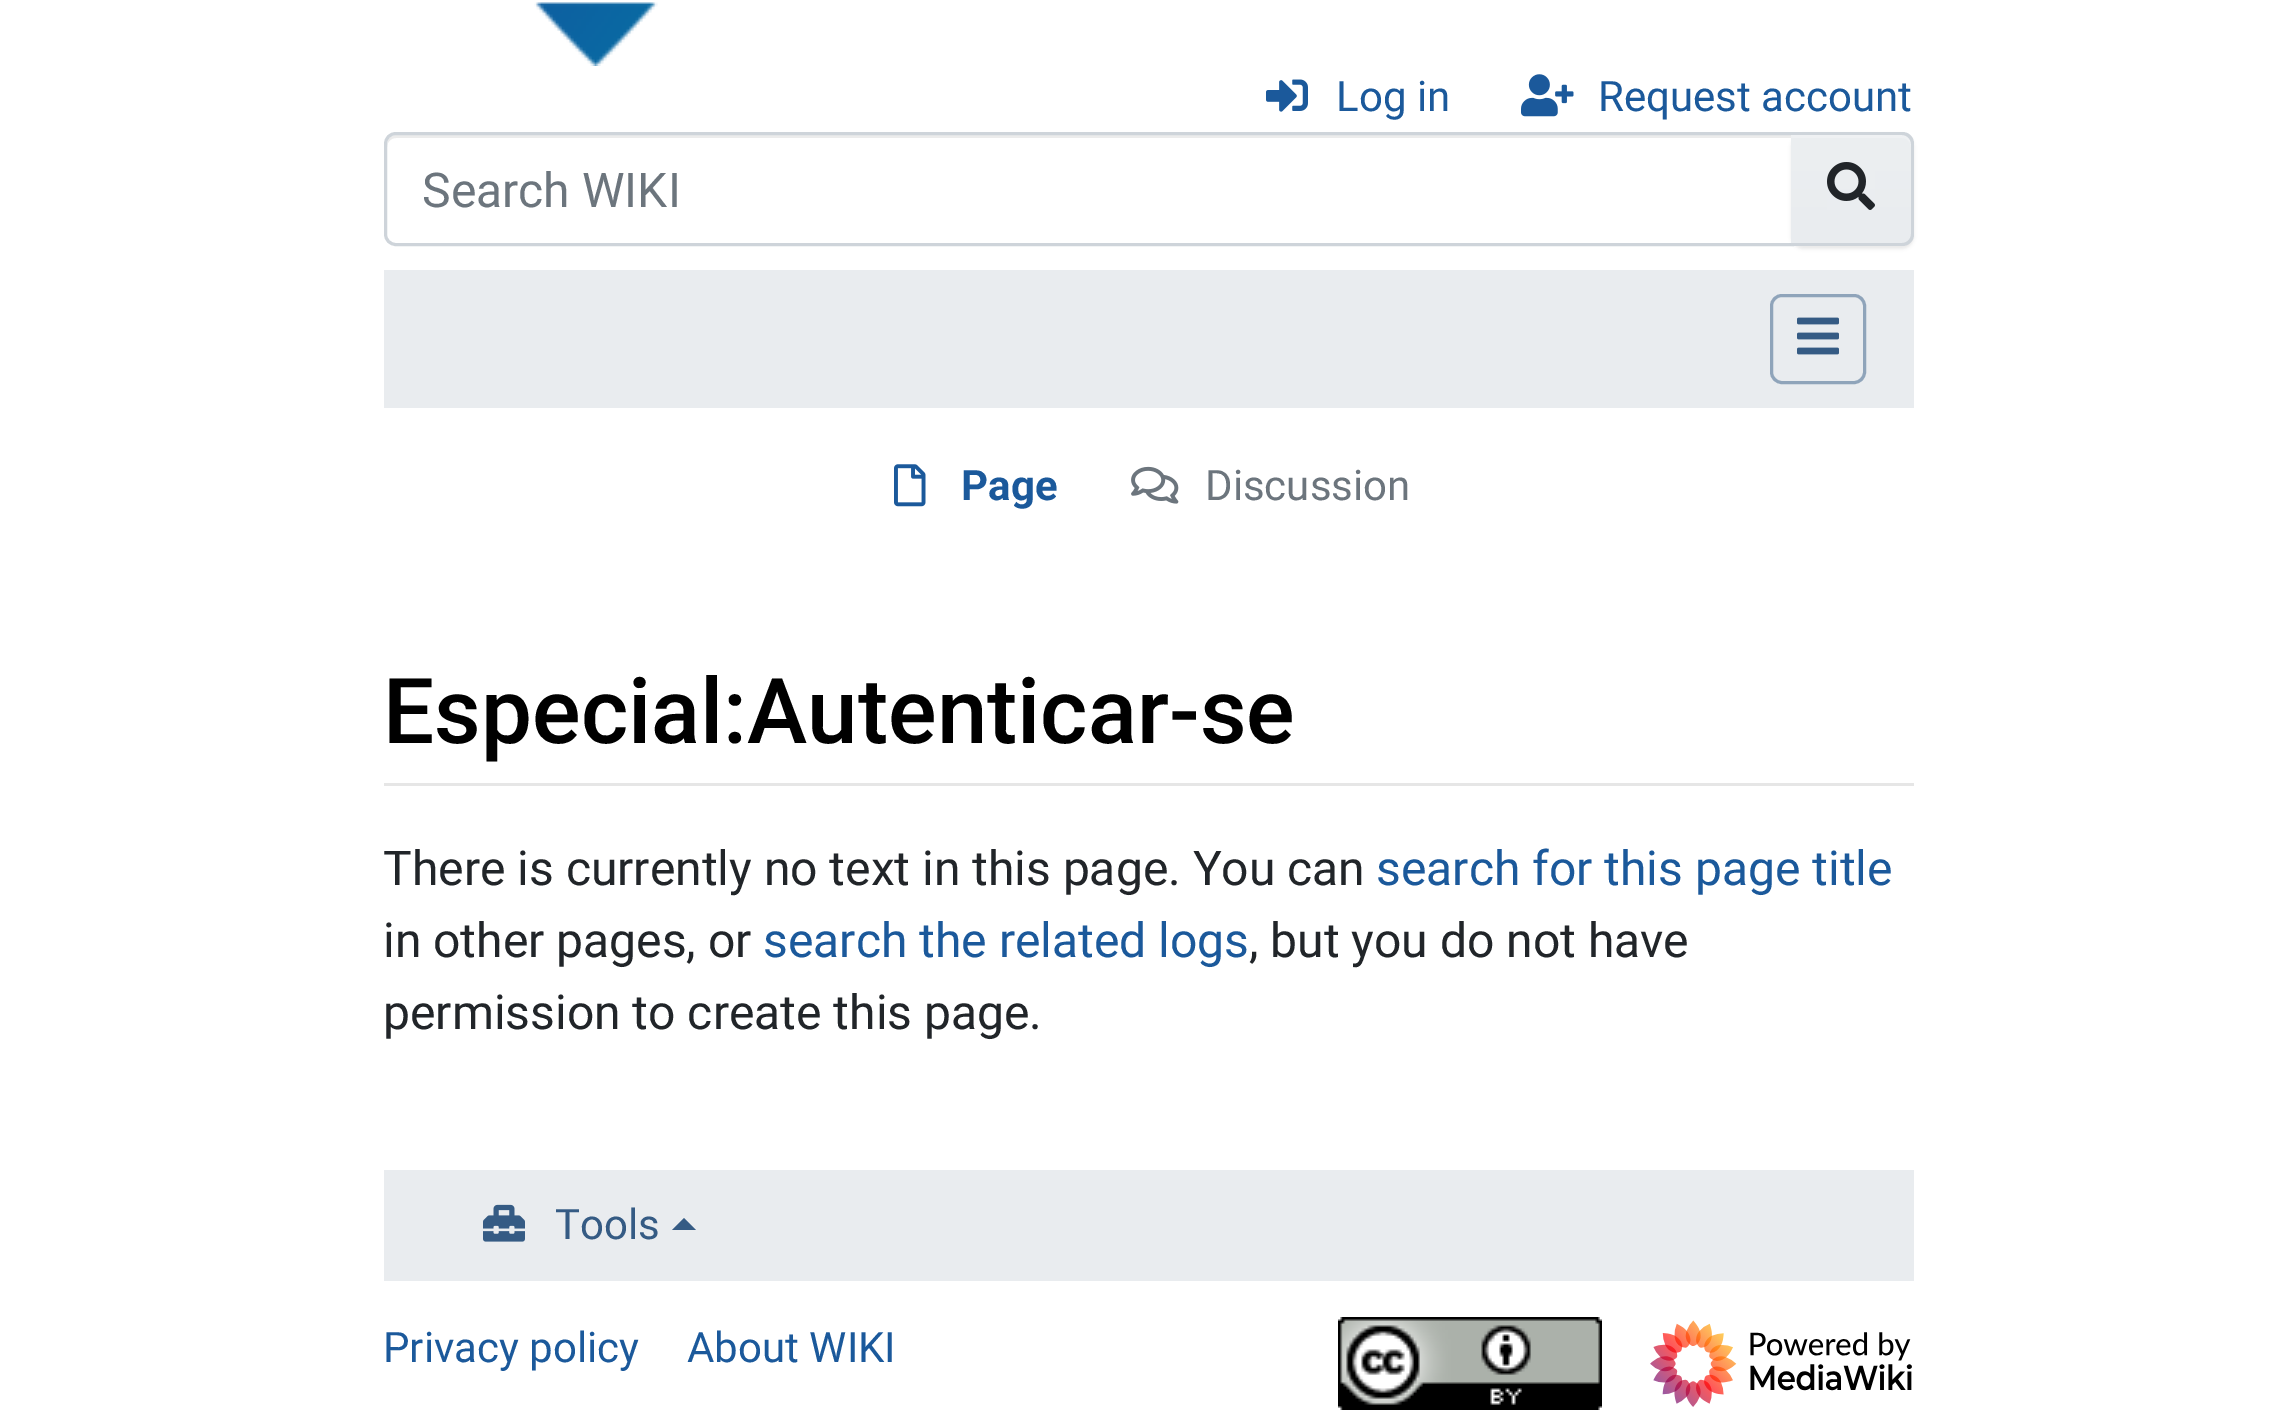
%!PS
<< /PageSize [2294 1410] /PageUsesTransparency true >> setpagedevice
/mt/moveto load def
/li/lineto load def
/ct/curveto load def
/cp/closepath load def
/fl/fill load def
/st/stroke load def
/gs/gsave load def
/gr/grestore load def
/lw/setlinewidth load def
/co { dup -16 bitshift 255 div exch dup -8 bitshift 255 and 255 div exch 255 and 255 div setrgbcolor } def
/fn { [ exch dup neg 0 0 3 -1 roll 0 0 ] selectfont } def
/tx { co fn moveto show } def
/bx { co rectfill } def
/al { dup .setfillconstantalpha .setstrokeconstantalpha } def
/rr { 5 dict begin { /r /h /w /y /x } { exch def } forall
  x r add y moveto x w add y 2 copy h add r arct x w add y h add x 1 index r arct
  x y h add x y r arct x y 2 copy exch w add exch r arct closepath end } def
/sh { 12 dict begin { /a /b /q /h /w /y /x } { exch def } forall gsave /was 0 def
  9 -2 -9 { dup b mul 4 div /e exch def 1 sub .425 mul 2.718 exch exp 1 add a .99 .min exch div /now exch def
    1 1 now sub 1 was sub div sub al /was now def
    w h .min e 2 mul add 0 gt { x e sub y e sub w e 2 mul add h e 2 mul add
      q e add b .6 mul add w h .min 2 div e add .min 0 .max rr fill } if } for grestore end } def
/im { 5 dict begin { /h /w /y /x /name } { exch def } forall
  gsave x y translate w h scale
  w h 8 [w 0 0 h 0 0] name (r) file false 3 colorimage grestore end } def
0 .pushpdf14devicefilter
0 1410 translate 1 -1 scale
4 setmiterlimit
0 0 2294 1410 16#FFFFFF bx
(media/1.raw) 534 2 124 64 im
(media/2.raw) 1266 79 42 33 im
(media/3.raw) 1521 74 53 43 im
16#ECECEC co
396 138 mt 1791 138 li 1791 135 li 396 135 li 389 135 387 141 387 147 ct 387 142 391 138 396 138 ct cp fl
16#CED4DA co
3 lw
396 133.5 mt 1792.5 133.5 li 1792.5 244.5 li 396 244.5 li 390 244.5 385.5 240 385.5 234 ct 385.5 144 li 385.5 138 390 133.5 396 133.5 ct cp st
16#000000 co
1791 135 123 114 12 1.5 .07 sh
gs 1791 135 mt 1902 135 li 1907 135 1911 139 1911 144 ct 1911 234 li 1911 239 1907 243 1902 243 ct 1791 243 li cp clip newpath
<< /ShadingType 2 /ColorSpace /DeviceRGB /Coords [1851 135 1851 243] /Extend [true true] /Function << /FunctionType 2 /Domain [0 1] /C0 [.925 .937 .945] /C1 [.914 .925 .937] /N 1 >> >> shfill gr
16#EFF1F3 co
1791 138 mt 1902 138 li 1907 138 1911 142 1911 147 ct 1911 144 li 1911 139 1907 135 1902 135 ct 1791 135 li cp fl
16#CED4DA co
1791 132 mt 1902 132 li 1909 132 1914 137 1914 144 ct 1914 234 li 1914 241 1909 246 1902 246 ct 1791 246 li cp 1791 135 mt 1902 135 li 1907 135 1911 139 1911 144 ct 1911 234 li 1911 239 1907 243 1902 243 ct 1791 243 li cp eofill
(media/4.raw) 1827 162 48 48 im
384 270 1530 138 16#E9ECEF bx
16#8FA4BA co
1771.5 295.5 93 87 10.5 rr st
(media/5.raw) 1797 317 42 38 im
(media/6.raw) 894 464 32 43 im
(media/7.raw) 1131 466 48 38 im
384 783 1530 3 16#E6E6E6 bx
384 1170 1530 111 16#E9ECEF bx
(media/8.raw) 483 1204 42 38 im
16#355B84 co
696 1230 mt 672 1230 li 684 1218 li cp fl
(media/9.raw) 1338 1317 264 93 im
(media/10.raw) 1650 1320 262 87 im
(Log in) 1336 111 /Roboto-Regular 42 16#1B599B tx
(Request account) 1598 111 /Roboto-Regular 42 16#1B599B tx
(Search WIKI) 422 207 /Roboto-Regular 48 16#6C757D tx
(Page) 961 500 /Roboto-Bold 42 16#1B599B tx
(Discussion) 1205 500 /Roboto-Regular 42 16#6C757D tx
(Especial:Autenticar-se) 383 743 /Roboto-Medium 90.75 16#000000 tx
(There is currently no text in this page. You can) 383 885 /Roboto-Regular 48 16#212529 tx
(search for this page title) 1376 885 /Roboto-Regular 48 16#1B599B tx
(in other pages, or) 383 957 /Roboto-Regular 48 16#212529 tx
(search the related logs) 763 957 /Roboto-Regular 48 16#1B599B tx
(, but you do not have) 1249 957 /Roboto-Regular 48 16#212529 tx
(permission to create this page.) 383 1029 /Roboto-Regular 48 16#212529 tx
(Tools) 555 1239 /Roboto-Regular 42 16#355B84 tx
(Privacy policy) 383 1362 /Roboto-Regular 42 16#1B599B tx
(About WIKI) 687 1362 /Roboto-Regular 42 16#1B599B tx
.poppdf14devicefilter showpage
